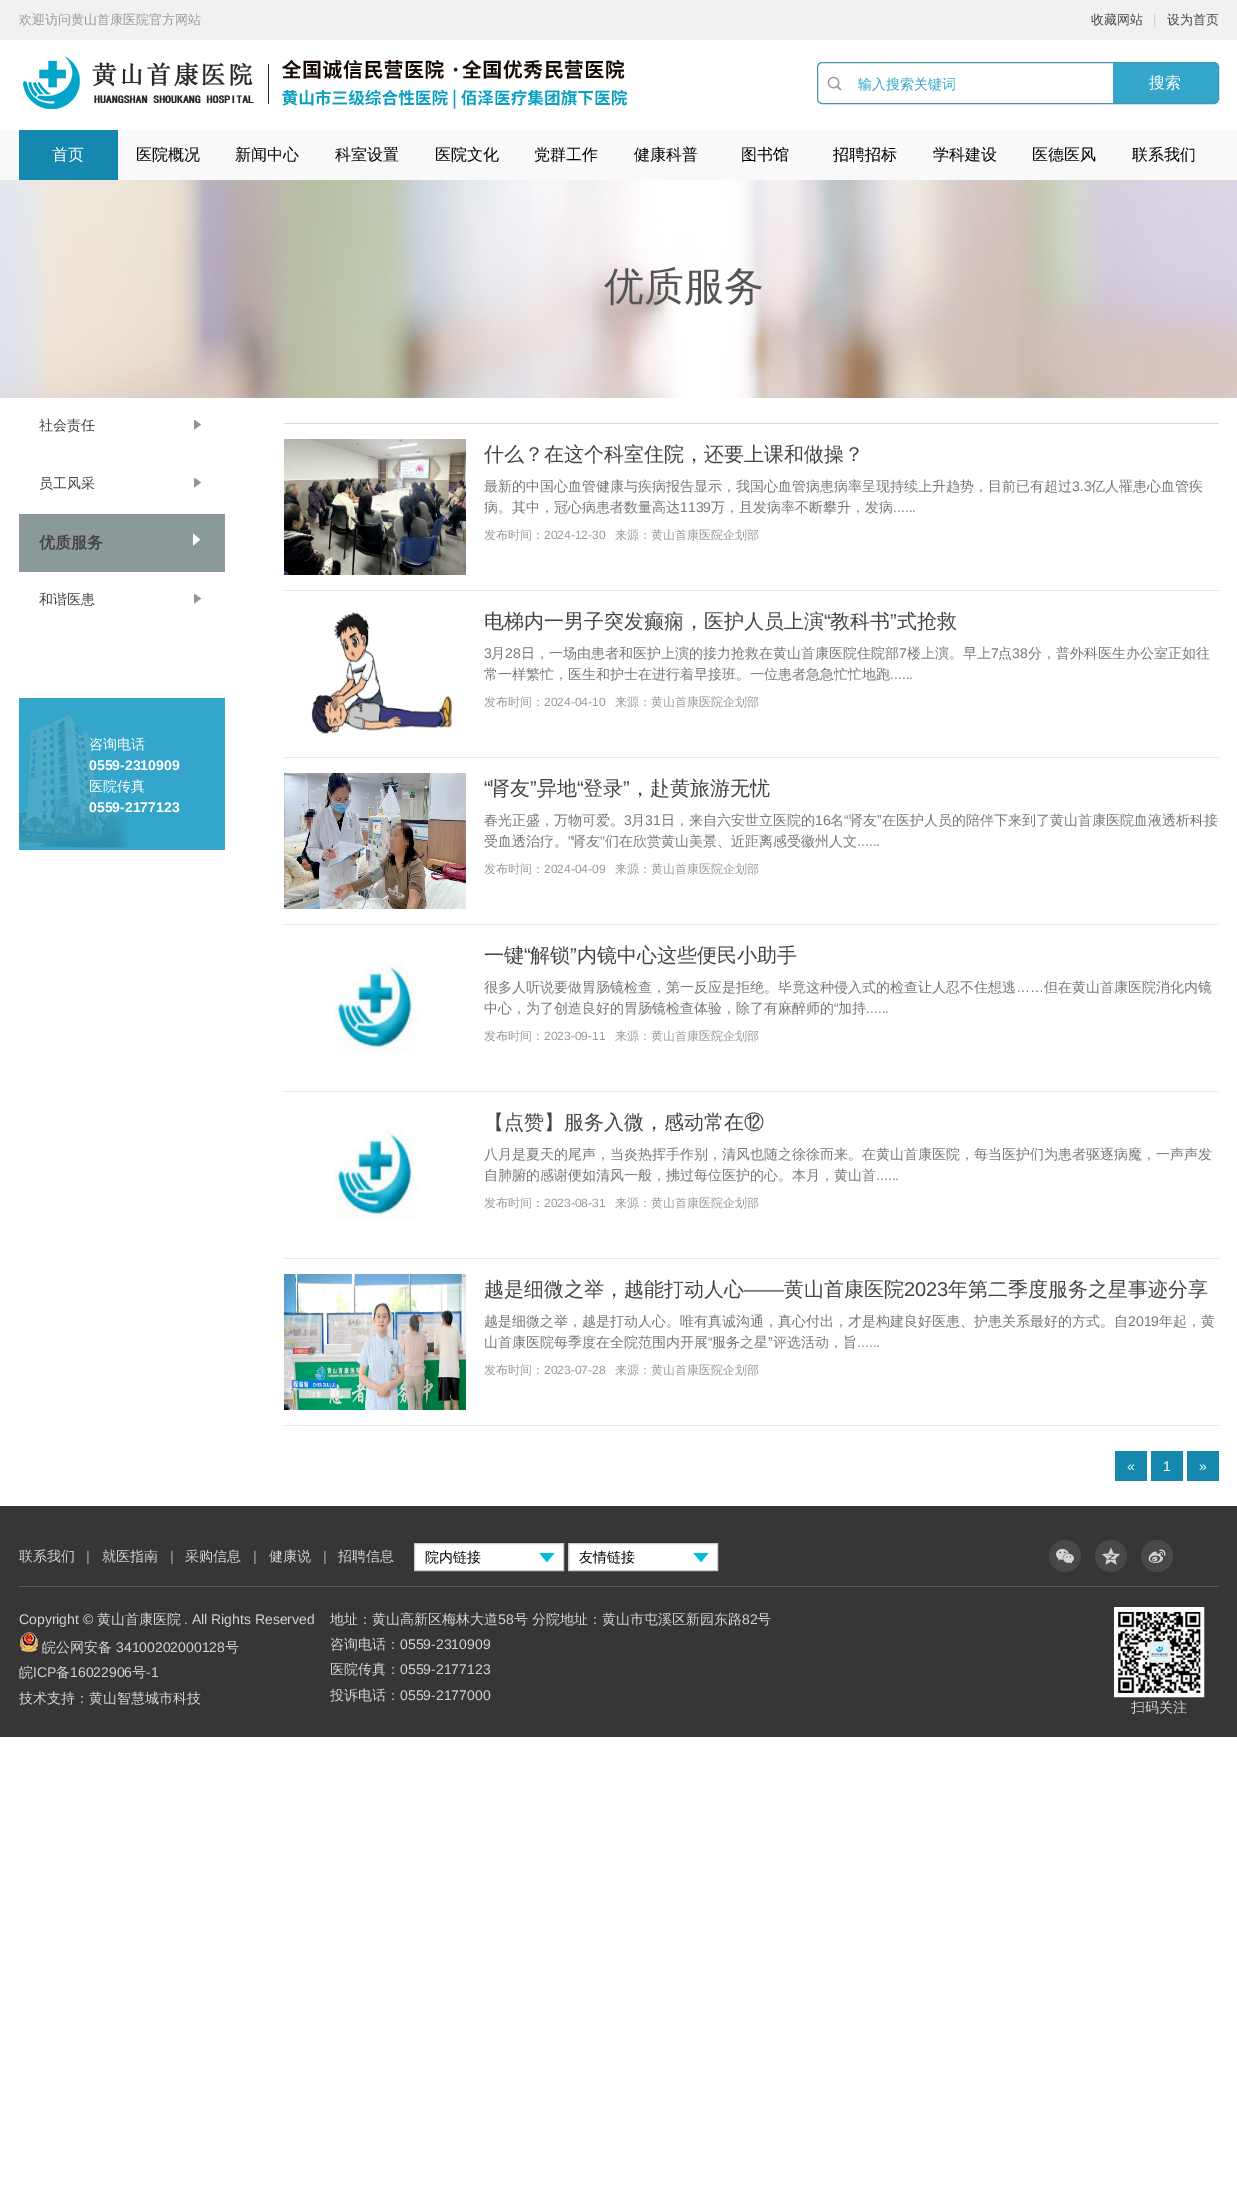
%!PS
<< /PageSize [1237 2206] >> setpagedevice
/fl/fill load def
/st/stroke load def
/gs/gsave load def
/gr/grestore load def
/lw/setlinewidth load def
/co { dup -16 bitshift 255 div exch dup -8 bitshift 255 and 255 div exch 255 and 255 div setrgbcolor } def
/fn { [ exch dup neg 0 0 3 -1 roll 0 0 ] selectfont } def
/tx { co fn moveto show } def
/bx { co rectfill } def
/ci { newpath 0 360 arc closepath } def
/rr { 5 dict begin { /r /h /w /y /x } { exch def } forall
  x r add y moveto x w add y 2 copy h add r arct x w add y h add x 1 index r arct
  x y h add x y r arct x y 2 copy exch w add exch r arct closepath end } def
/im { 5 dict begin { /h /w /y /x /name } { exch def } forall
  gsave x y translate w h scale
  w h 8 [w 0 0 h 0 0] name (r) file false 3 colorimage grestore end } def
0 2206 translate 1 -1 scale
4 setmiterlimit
0 0 1237 2206 16#FFFFFF bx
0 0 1237 40 16#F1F1F1 bx
(media/1.raw) 23 56 604 53 im
16#4A95A7 co
817.5 62.5 401 41 4.5 rr st
(media/2.raw) 827 76 15 15 im
1113 63 105 40 16#34A6CB bx
0 130 1237 50 16#F9F9F9 bx
19 130 99 50 16#1488AF bx
(media/3.raw) 0 180 1237 218 im
(media/4.raw) 194 420 8 10 im
(media/4.raw) 194 478 8 10 im
19 514 206 58 16#8C999A bx
(media/5.raw) 193 533 8 13 im
(media/4.raw) 194 594 8 10 im
(media/6.raw) 19 698 206 152 im
284 423 935 1 16#D7D7D7 bx
284 590 935 1 16#E6E6E6 bx
(media/7.raw) 284 439 182 136 im
284 757 935 1 16#E6E6E6 bx
(media/8.raw) 311 612 143 122 im
284 924 935 1 16#E6E6E6 bx
(media/9.raw) 284 773 182 136 im
284 1091 935 1 16#E6E6E6 bx
(media/10.raw) 334 961 84 93 im
284 1258 935 1 16#E6E6E6 bx
(media/11.raw) 334 1128 84 93 im
284 1425 935 1 16#E6E6E6 bx
(media/12.raw) 284 1274 182 136 im
1115 1451 32 30 16#1488AF bx
1151 1451 32 30 16#1488AF bx
1187 1451 32 30 16#1488AF bx
0 1506 1237 231 16#363636 bx
19 1586 1200 1 16#505A54 bx
415 1544 148 26 16#FFFFFF bx
(media/13.raw) 539 1553 16 10 im
16#CCCCCC co
414.5 1543.5 149 27 rectstroke
569 1544 148 26 16#FFFFFF bx
(media/13.raw) 693 1553 16 10 im
16#CCCCCC co
568.5 1543.5 149 27 rectstroke
16#494949 co
1065 1556 16 ci fl
(media/14.raw) 1056 1548 18 16 im
1111 1556 16 ci fl
(media/15.raw) 1102 1547 18 18 im
1157 1556 16 ci fl
(media/16.raw) 1148 1549 18 14 im
(media/17.raw) 20 1632 18 20 im
16#FFFFFF co
3 lw
1115.5 1608.5 87 87 rectstroke
(media/18.raw) 1117 1610 84 84 im
(欢迎访问黄山首康医院官方网站) 19 24 /WenQuanYiZenHei-Medium 13 16#999999 tx
(收藏网站) 1091 24 /WenQuanYiZenHei-Medium 13 16#444444 tx
(|) 1153 24 /LiberationSans-Regular 13 16#CCCCCC tx
(设为首页) 1167 24 /WenQuanYiZenHei-Medium 13 16#444444 tx
gs
858 76 169 18 rectclip
(输入搜索关键词) 858 89 /WenQuanYiZenHei-Medium 14 16#34A6CB tx
gr
(搜索) 1149 88 /WenQuanYiZenHei-Medium 16 16#FFFFFF tx
(首页) 52 160 /WenQuanYiZenHei-Medium 16 16#FFFFFF tx
(医院概况) 136 160 /WenQuanYiZenHei-Medium 16 16#000000 tx
(新闻中心) 235 160 /WenQuanYiZenHei-Medium 16 16#000000 tx
(科室设置) 335 160 /WenQuanYiZenHei-Medium 16 16#000000 tx
(医院文化) 435 160 /WenQuanYiZenHei-Medium 16 16#000000 tx
(党群工作) 534 160 /WenQuanYiZenHei-Medium 16 16#000000 tx
(健康科普) 634 160 /WenQuanYiZenHei-Medium 16 16#000000 tx
(图书馆) 741 160 /WenQuanYiZenHei-Medium 16 16#000000 tx
(招聘招标) 833 160 /WenQuanYiZenHei-Medium 16 16#000000 tx
(学科建设) 933 160 /WenQuanYiZenHei-Medium 16 16#000000 tx
(医德医风) 1032 160 /WenQuanYiZenHei-Medium 16 16#000000 tx
(联系我们) 1132 160 /WenQuanYiZenHei-Medium 16 16#000000 tx
(优质服务) 604 300 /WenQuanYiZenHei-Medium 40 16#555555 tx
(社会责任) 39 430 /WenQuanYiZenHei-Medium 14 16#444444 tx
(员工风采) 39 488 /WenQuanYiZenHei-Medium 14 16#444444 tx
(优质服务) 39 548 /WenQuanYiZenHei-Bold 16 16#444444 tx
(和谐医患) 39 604 /WenQuanYiZenHei-Medium 14 16#444444 tx
(咨询电话) 89 749 /WenQuanYiZenHei-Medium 14 16#FFFFFF tx
(0559-2310909) 89 770 /LiberationSans-Bold 14 16#FFFFFF tx
(医院传真) 89 791 /WenQuanYiZenHei-Medium 14 16#FFFFFF tx
(0559-2177123) 89 812 /LiberationSans-Bold 14 16#FFFFFF tx
(什么？在这个科室住院，还要上课和做操？) 484 461 /WenQuanYiZenHei-Medium 20 16#444444 tx
(最新的中国心血管健康与疾病报告显示，我国心血管病患病率呈现持续上升趋势，目前已有超过) 484 491 /WenQuanYiZenHei-Medium 14 16#777777 tx
(3.3) 1072 491 /LiberationSans-Regular 14 16#777777 tx
(亿人罹患心血管疾) 1091 491 /WenQuanYiZenHei-Medium 14 16#777777 tx
(病。其中，冠心病患者数量高达) 484 512 /WenQuanYiZenHei-Medium 14 16#777777 tx
(1139) 680 512 /LiberationSans-Regular 14 16#777777 tx
(万，且发病率不断攀升，发病) 711 512 /WenQuanYiZenHei-Medium 14 16#777777 tx
(......) 893 512 /LiberationSans-Regular 14 16#777777 tx
(发布时间：) 484 539 /WenQuanYiZenHei-Medium 12 16#999999 tx
(2024-12-30) 544 539 /LiberationSans-Regular 12 16#999999 tx
(来源：黄山首康医院企划部) 615 539 /WenQuanYiZenHei-Medium 12 16#999999 tx
(电梯内一男子突发癫痫，医护人员上演) 484 628 /WenQuanYiZenHei-Medium 20 16#444444 tx
(“) 824 628 /LiberationSans-Regular 20 16#444444 tx
(教科书) 830 628 /WenQuanYiZenHei-Medium 20 16#444444 tx
(”) 890 628 /LiberationSans-Regular 20 16#444444 tx
(式抢救) 897 628 /WenQuanYiZenHei-Medium 20 16#444444 tx
(3) 484 658 /LiberationSans-Regular 14 16#777777 tx
(月) 491 658 /WenQuanYiZenHei-Medium 14 16#777777 tx
(28) 505 658 /LiberationSans-Regular 14 16#777777 tx
(日，一场由患者和医护上演的接力抢救在黄山首康医院住院部) 521 658 /WenQuanYiZenHei-Medium 14 16#777777 tx
(7) 899 658 /LiberationSans-Regular 14 16#777777 tx
(楼上演。早上) 907 658 /WenQuanYiZenHei-Medium 14 16#777777 tx
(7) 991 658 /LiberationSans-Regular 14 16#777777 tx
(点) 998 658 /WenQuanYiZenHei-Medium 14 16#777777 tx
(38) 1012 658 /LiberationSans-Regular 14 16#777777 tx
(分，普外科医生办公室正如往) 1028 658 /WenQuanYiZenHei-Medium 14 16#777777 tx
(常一样繁忙，医生和护士在进行着早接班。一位患者急急忙忙地跑) 484 679 /WenQuanYiZenHei-Medium 14 16#777777 tx
(......) 890 679 /LiberationSans-Regular 14 16#777777 tx
(发布时间：) 484 706 /WenQuanYiZenHei-Medium 12 16#999999 tx
(2024-04-10) 544 706 /LiberationSans-Regular 12 16#999999 tx
(来源：黄山首康医院企划部) 615 706 /WenQuanYiZenHei-Medium 12 16#999999 tx
(“) 484 795 /LiberationSans-Regular 20 16#444444 tx
(肾友) 490 795 /WenQuanYiZenHei-Medium 20 16#444444 tx
(”) 530 795 /LiberationSans-Regular 20 16#444444 tx
(异地) 537 795 /WenQuanYiZenHei-Medium 20 16#444444 tx
(“) 577 795 /LiberationSans-Regular 20 16#444444 tx
(登录) 583 795 /WenQuanYiZenHei-Medium 20 16#444444 tx
(”) 623 795 /LiberationSans-Regular 20 16#444444 tx
(，赴黄旅游无忧) 630 795 /WenQuanYiZenHei-Medium 20 16#444444 tx
(春光正盛，万物可爱。) 484 825 /WenQuanYiZenHei-Medium 14 16#777777 tx
(3) 624 825 /LiberationSans-Regular 14 16#777777 tx
(月) 631 825 /WenQuanYiZenHei-Medium 14 16#777777 tx
(31) 645 825 /LiberationSans-Regular 14 16#777777 tx
(日，来自六安世立医院的) 661 825 /WenQuanYiZenHei-Medium 14 16#777777 tx
(16) 815 825 /LiberationSans-Regular 14 16#777777 tx
(名) 830 825 /WenQuanYiZenHei-Medium 14 16#777777 tx
(“) 844 825 /LiberationSans-Regular 14 16#777777 tx
(肾友) 849 825 /WenQuanYiZenHei-Medium 14 16#777777 tx
(”) 877 825 /LiberationSans-Regular 14 16#777777 tx
(在医护人员的陪伴下来到了黄山首康医院血液透析科接) 882 825 /WenQuanYiZenHei-Medium 14 16#777777 tx
(受血透治疗。) 484 846 /WenQuanYiZenHei-Medium 14 16#777777 tx
(") 568 846 /LiberationSans-Regular 14 16#777777 tx
(肾友) 572 846 /WenQuanYiZenHei-Medium 14 16#777777 tx
(") 600 846 /LiberationSans-Regular 14 16#777777 tx
(们在欣赏黄山美景、近距离感受徽州人文) 605 846 /WenQuanYiZenHei-Medium 14 16#777777 tx
(......) 857 846 /LiberationSans-Regular 14 16#777777 tx
(发布时间：) 484 873 /WenQuanYiZenHei-Medium 12 16#999999 tx
(2024-04-09) 544 873 /LiberationSans-Regular 12 16#999999 tx
(来源：黄山首康医院企划部) 615 873 /WenQuanYiZenHei-Medium 12 16#999999 tx
(一键) 484 962 /WenQuanYiZenHei-Medium 20 16#444444 tx
(“) 524 962 /LiberationSans-Regular 20 16#444444 tx
(解锁) 530 962 /WenQuanYiZenHei-Medium 20 16#444444 tx
(”) 570 962 /LiberationSans-Regular 20 16#444444 tx
(内镜中心这些便民小助手) 577 962 /WenQuanYiZenHei-Medium 20 16#444444 tx
(很多人听说要做胃肠镜检查，第一反应是拒绝。毕竟这种侵入式的检查让人忍不住想逃) 484 992 /WenQuanYiZenHei-Medium 14 16#777777 tx
(……) 1016 992 /LiberationSans-Regular 14 16#777777 tx
(但在黄山首康医院消化内镜) 1044 992 /WenQuanYiZenHei-Medium 14 16#777777 tx
(中心，为了创造良好的胃肠镜检查体验，除了有麻醉师的) 484 1013 /WenQuanYiZenHei-Medium 14 16#777777 tx
(“) 834 1013 /LiberationSans-Regular 14 16#777777 tx
(加持) 838 1013 /WenQuanYiZenHei-Medium 14 16#777777 tx
(......) 866 1013 /LiberationSans-Regular 14 16#777777 tx
(发布时间：) 484 1040 /WenQuanYiZenHei-Medium 12 16#999999 tx
(2023-09-11) 544 1040 /LiberationSans-Regular 12 16#999999 tx
(来源：黄山首康医院企划部) 615 1040 /WenQuanYiZenHei-Medium 12 16#999999 tx
(【点赞】服务入微，感动常在⑫) 484 1129 /WenQuanYiZenHei-Medium 20 16#444444 tx
(八月是夏天的尾声，当炎热挥手作别，清风也随之徐徐而来。在黄山首康医院，每当医护们为患者驱逐病魔，一声声发) 484 1159 /WenQuanYiZenHei-Medium 14 16#777777 tx
(自肺腑的感谢便如清风一般，拂过每位医护的心。本月，黄山首) 484 1180 /WenQuanYiZenHei-Medium 14 16#777777 tx
(......) 876 1180 /LiberationSans-Regular 14 16#777777 tx
(发布时间：) 484 1207 /WenQuanYiZenHei-Medium 12 16#999999 tx
(2023-08-31) 544 1207 /LiberationSans-Regular 12 16#999999 tx
(来源：黄山首康医院企划部) 615 1207 /WenQuanYiZenHei-Medium 12 16#999999 tx
(越是细微之举，越能打动人心) 484 1296 /WenQuanYiZenHei-Medium 20 16#444444 tx
(——) 744 1296 /LiberationSans-Regular 20 16#444444 tx
(黄山首康医院) 784 1296 /WenQuanYiZenHei-Medium 20 16#444444 tx
(2023) 904 1296 /LiberationSans-Regular 20 16#444444 tx
(年第二季度服务之星事迹分享) 948 1296 /WenQuanYiZenHei-Medium 20 16#444444 tx
(越是细微之举，越是打动人心。唯有真诚沟通，真心付出，才是构建良好医患、护患关系最好的方式。自) 484 1326 /WenQuanYiZenHei-Medium 14 16#777777 tx
(2019) 1128 1326 /LiberationSans-Regular 14 16#777777 tx
(年起，黄) 1159 1326 /WenQuanYiZenHei-Medium 14 16#777777 tx
(山首康医院每季度在全院范围内开展) 484 1347 /WenQuanYiZenHei-Medium 14 16#777777 tx
(“) 708 1347 /LiberationSans-Regular 14 16#777777 tx
(服务之星) 712 1347 /WenQuanYiZenHei-Medium 14 16#777777 tx
(”) 768 1347 /LiberationSans-Regular 14 16#777777 tx
(评选活动，旨) 773 1347 /WenQuanYiZenHei-Medium 14 16#777777 tx
(......) 857 1347 /LiberationSans-Regular 14 16#777777 tx
(发布时间：) 484 1374 /WenQuanYiZenHei-Medium 12 16#999999 tx
(2023-07-28) 544 1374 /LiberationSans-Regular 12 16#999999 tx
(来源：黄山首康医院企划部) 615 1374 /WenQuanYiZenHei-Medium 12 16#999999 tx
(«) 1127 1471 /LiberationSans-Regular 14 16#FFFFFF tx
(1) 1163 1471 /LiberationSans-Regular 14 16#FFFFFF tx
(») 1199 1471 /LiberationSans-Regular 14 16#FFFFFF tx
(联系我们) 19 1561 /WenQuanYiZenHei-Medium 14 16#D4D4D4 tx
(|) 86 1561 /LiberationSans-Regular 14 16#A1A1A1 tx
(就医指南) 102 1561 /WenQuanYiZenHei-Medium 14 16#D4D4D4 tx
(|) 170 1561 /LiberationSans-Regular 14 16#A1A1A1 tx
(采购信息) 185 1561 /WenQuanYiZenHei-Medium 14 16#D4D4D4 tx
(|) 253 1561 /LiberationSans-Regular 14 16#A1A1A1 tx
(健康说) 269 1561 /WenQuanYiZenHei-Medium 14 16#D4D4D4 tx
(|) 323 1561 /LiberationSans-Regular 14 16#A1A1A1 tx
(招聘信息) 338 1561 /WenQuanYiZenHei-Medium 14 16#D4D4D4 tx
(院内链接) 425 1562 /WenQuanYiZenHei-Medium 14 16#000000 tx
(友情链接) 579 1562 /WenQuanYiZenHei-Medium 14 16#000000 tx
(Copyright ©) 19 1624 /LiberationSans-Regular 14 16#D4D4D4 tx
(黄山首康医院) 97 1624 /WenQuanYiZenHei-Medium 14 16#D4D4D4 tx
(. All Rights Reserved) 184 1624 /LiberationSans-Regular 14 16#D4D4D4 tx
(皖公网安备) 42 1652 /WenQuanYiZenHei-Medium 14 16#D4D4D4 tx
(34100202000128) 116 1652 /LiberationSans-Regular 14 16#D4D4D4 tx
(号) 225 1652 /WenQuanYiZenHei-Medium 14 16#D4D4D4 tx
(皖) 19 1677 /WenQuanYiZenHei-Medium 14 16#D4D4D4 tx
(ICP) 33 1677 /LiberationSans-Regular 14 16#D4D4D4 tx
(备) 56 1677 /WenQuanYiZenHei-Medium 14 16#D4D4D4 tx
(16022906) 70 1677 /LiberationSans-Regular 14 16#D4D4D4 tx
(号) 132 1677 /WenQuanYiZenHei-Medium 14 16#D4D4D4 tx
(-1) 146 1677 /LiberationSans-Regular 14 16#D4D4D4 tx
(技术支持：黄山智慧城市科技) 19 1703 /WenQuanYiZenHei-Medium 14 16#D4D4D4 tx
(地址：黄山高新区梅林大道) 330 1624 /WenQuanYiZenHei-Medium 14 16#D4D4D4 tx
(58) 498 1624 /LiberationSans-Regular 14 16#D4D4D4 tx
(号) 514 1624 /WenQuanYiZenHei-Medium 14 16#D4D4D4 tx
(分院地址：黄山市屯溪区新园东路) 532 1624 /WenQuanYiZenHei-Medium 14 16#D4D4D4 tx
(82) 742 1624 /LiberationSans-Regular 14 16#D4D4D4 tx
(号) 757 1624 /WenQuanYiZenHei-Medium 14 16#D4D4D4 tx
(咨询电话：) 330 1649 /WenQuanYiZenHei-Medium 14 16#D4D4D4 tx
(0559-2310909) 400 1649 /LiberationSans-Regular 14 16#D4D4D4 tx
(医院传真：) 330 1674 /WenQuanYiZenHei-Medium 14 16#D4D4D4 tx
(0559-2177123) 400 1674 /LiberationSans-Regular 14 16#D4D4D4 tx
(投诉电话：) 330 1700 /WenQuanYiZenHei-Medium 14 16#D4D4D4 tx
(0559-2177000) 400 1700 /LiberationSans-Regular 14 16#D4D4D4 tx
(扫码关注) 1131 1712 /WenQuanYiZenHei-Medium 14 16#D4D4D4 tx
showpage
